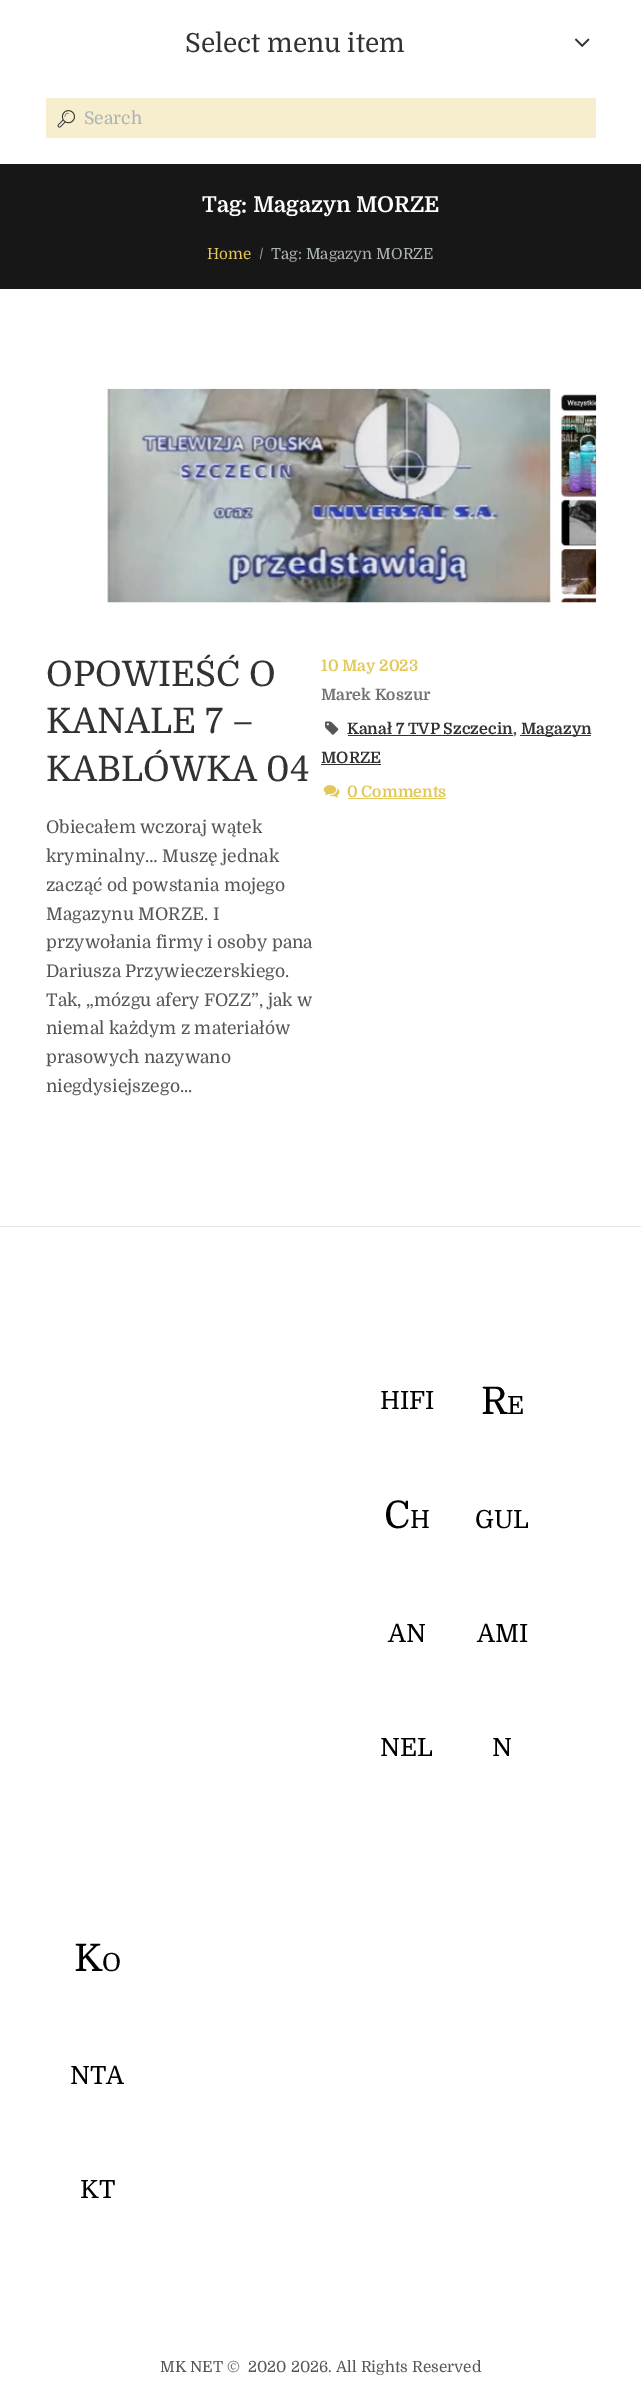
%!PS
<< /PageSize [641 2403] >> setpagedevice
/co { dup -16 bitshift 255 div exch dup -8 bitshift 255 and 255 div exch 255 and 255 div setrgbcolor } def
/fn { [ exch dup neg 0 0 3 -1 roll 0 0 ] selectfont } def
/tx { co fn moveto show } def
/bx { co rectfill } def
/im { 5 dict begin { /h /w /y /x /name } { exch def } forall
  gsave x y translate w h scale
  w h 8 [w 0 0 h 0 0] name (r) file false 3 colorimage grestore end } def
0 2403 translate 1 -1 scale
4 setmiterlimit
0 0 641 2403 16#FFFFFF bx
(media/1.raw) 574 38 16 9 im
46 98 550 40 16#F6EECD bx
(media/2.raw) 57 110 18 18 im
0 164 641 125 16#171717 bx
(media/3.raw) 107 388 490 215 im
(media/4.raw) 325 721 14 14 im
348 735 165 1 16#323232 bx
520 735 71 1 16#323232 bx
321 764 60 1 16#323232 bx
(media/5.raw) 323 785 17 13 im
348 798 98 1 16#E2C75A bx
0 1226 641 1 16#E3E3E3 bx
(Select menu item) 185 52 /Domine-Regular 26.25 16#323232 tx
(Search) 84 124 /Domine-Regular 17.5 16#ACB4B6 tx
(Tag: Magazyn MORZE) 202 212 /Domine-Bold 21.9 16#FFFFFF tx
(Home) 207 259 /Domine-Regular 15.25 16#E2C75A tx
(/) 259 259 /Domine-Regular 15.25 16#ACB4B6 tx
(Tag: Magazyn MORZE) 271 259 /Domine-Regular 15.25 16#ACB4B6 tx
(OPOWIEŚĆ O) 46 686 /Domine-Regular 35 16#323232 tx
(KANALE 7 –) 46 733 /Domine-Regular 35 16#323232 tx
(KABLÓWKA 04) 46 781 /Domine-Regular 35 16#323232 tx
(Obiecałem wczoraj wątek) 46 833 /Domine-Regular 17.5 16#545657 tx
(kryminalny… Muszę jednak) 46 862 /Domine-Regular 17.5 16#545657 tx
(zacząć od powstania mojego) 46 891 /Domine-Regular 17.5 16#545657 tx
(Magazynu MORZE. I) 46 920 /Domine-Regular 17.5 16#545657 tx
(przywołania firmy i osoby pana) 46 948 /Domine-Regular 17.5 16#545657 tx
(Dariusza Przywieczerskiego.) 46 977 /Domine-Regular 17.5 16#545657 tx
(Tak, „mózgu afery FOZZ”, jak w) 46 1006 /Domine-Regular 17.5 16#545657 tx
(niemal każdym z materiałów) 46 1034 /Domine-Regular 17.5 16#545657 tx
(prasowych nazywano) 46 1063 /Domine-Regular 17.5 16#545657 tx
(niegdysiejszego...) 46 1092 /Domine-Regular 17.5 16#545657 tx
(10 May 2023) 321 671 /Domine-Bold 15.75 16#E2C75A tx
(Marek Koszur) 321 700 /Domine-Bold 15.75 16#727272 tx
(Kanał 7 TVP Szczecin) 347 734 /Domine-Bold 15.75 16#323232 tx
(,) 513 734 /Domine-Bold 15.75 16#545657 tx
(Magazyn) 521 734 /Domine-Bold 15.75 16#323232 tx
(MORZE) 321 763 /Domine-Bold 15.75 16#323232 tx
(0 Comments) 347 797 /Domine-Bold 15.75 16#E2C75A tx
(HIFI) 380 1409 /Domine-Regular 25 16#000000 tx
(C) 384 1528 /Domine-Regular 38 16#000000 tx
(H) 410 1528 /Domine-Regular 25 16#000000 tx
(AN) 388 1642 /Domine-Regular 25 16#000000 tx
(NEL) 380 1756 /Domine-Regular 25 16#000000 tx
(R) 481 1414 /Domine-Regular 38 16#000000 tx
(E) 507 1414 /Domine-Regular 25 16#000000 tx
(GUL) 475 1528 /Domine-Regular 25 16#000000 tx
(AMI) 477 1642 /Domine-Regular 25 16#000000 tx
(N) 492 1756 /Domine-Regular 25 16#000000 tx
(K) 74 1971 /Domine-Regular 38 16#000000 tx
(O) 102 1971 /Domine-Regular 25 16#000000 tx
(NTA) 70 2084 /Domine-Regular 25 16#000000 tx
(KT) 80 2198 /Domine-Regular 25 16#000000 tx
(MK NET ©  2020 2026. All Rights Reserved) 160 2372 /Domine-Regular 15.4 16#545657 tx
showpage
